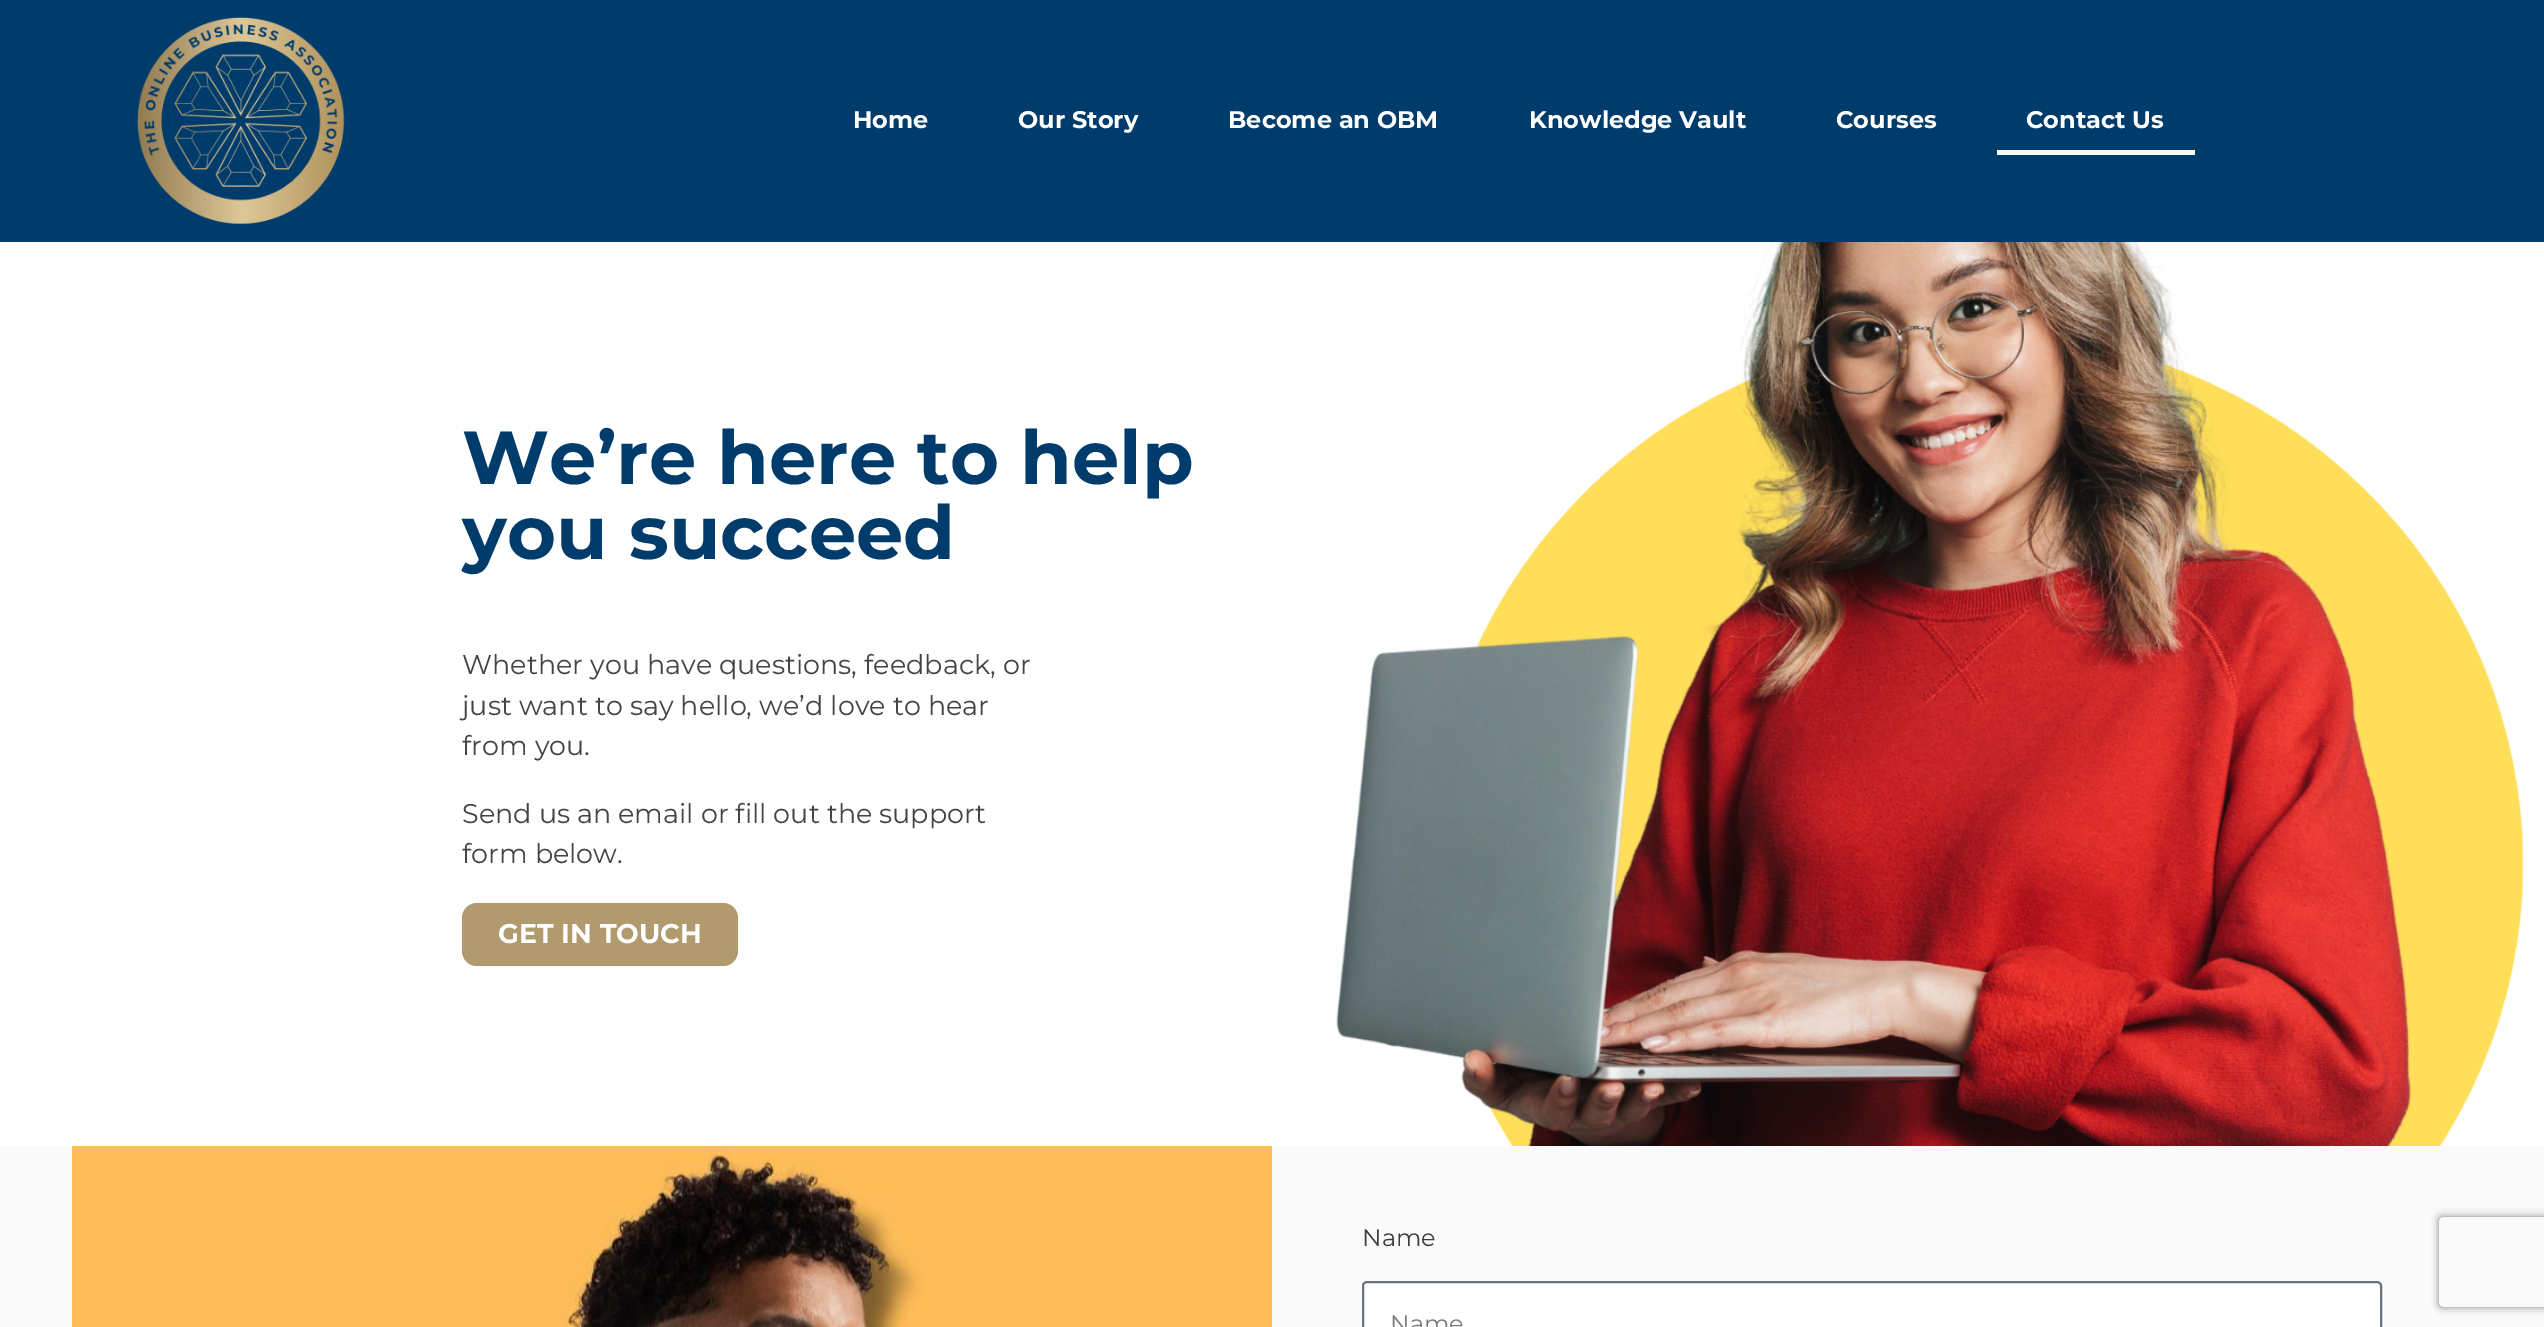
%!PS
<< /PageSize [2544 1327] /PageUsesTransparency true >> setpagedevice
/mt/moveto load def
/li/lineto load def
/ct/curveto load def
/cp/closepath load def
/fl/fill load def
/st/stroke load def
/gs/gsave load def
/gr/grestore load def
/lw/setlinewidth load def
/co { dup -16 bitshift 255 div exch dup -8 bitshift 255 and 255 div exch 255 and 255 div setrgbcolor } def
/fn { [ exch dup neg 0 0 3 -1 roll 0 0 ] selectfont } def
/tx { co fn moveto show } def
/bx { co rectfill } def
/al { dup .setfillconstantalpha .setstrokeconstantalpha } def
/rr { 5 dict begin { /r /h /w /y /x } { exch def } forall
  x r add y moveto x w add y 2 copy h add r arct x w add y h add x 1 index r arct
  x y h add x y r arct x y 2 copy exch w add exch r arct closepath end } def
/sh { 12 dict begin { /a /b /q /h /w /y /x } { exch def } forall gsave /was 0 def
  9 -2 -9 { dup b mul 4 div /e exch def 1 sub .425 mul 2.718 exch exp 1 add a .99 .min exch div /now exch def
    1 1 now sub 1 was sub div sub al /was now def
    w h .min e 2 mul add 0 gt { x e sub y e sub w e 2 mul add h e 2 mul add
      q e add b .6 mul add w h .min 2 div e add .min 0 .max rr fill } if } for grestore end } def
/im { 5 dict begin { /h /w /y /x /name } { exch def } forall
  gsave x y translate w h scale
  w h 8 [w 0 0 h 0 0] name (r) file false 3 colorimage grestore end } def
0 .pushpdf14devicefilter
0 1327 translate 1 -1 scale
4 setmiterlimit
0 0 2544 1327 16#FAFAFA bx
0 0 2544 242 16#003C6B bx
(media/1.raw) 137 17 208 208 im
1997 150 198 5 16#FAFAFA bx
0 242 2544 904 16#FFFFFF bx
(media/2.raw) 1336 242 1188 904 im
16#B19A6E co
462 903 276 63 15 rr fl
(media/3.raw) 72 1146 1200 181 im
16#FFFFFF co
1363 1282 1018 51 4 rr gs fl gr
16#69727D co
2 lw
st
gs
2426 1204 mt 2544 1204 li 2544 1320 li 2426 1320 li cp 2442 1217 mt 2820 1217 li 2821.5 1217 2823 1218.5 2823 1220 ct 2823 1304 li 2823 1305.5 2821.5 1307 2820 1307 ct 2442 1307 li 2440.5 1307 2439 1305.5 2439 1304 ct 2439 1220 li 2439 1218.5 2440.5 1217 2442 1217 ct cp eoclip newpath
16#808080 co
2439 1217 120 90 3 4 1 sh
gr
(Home) 853 128 /Montserrat-Thin 24 16#FFFFFF tx
(Our Story) 1018 128 /Montserrat-Thin 24 16#FFFFFF tx
(Become an OBM) 1228 128 /Montserrat-Thin 24 16#FFFFFF tx
(Knowledge Vault) 1529 128 /Montserrat-Thin 24 16#FFFFFF tx
(Courses) 1836 128 /Montserrat-Thin 24 16#FFFFFF tx
(Contact Us) 2026 128 /Montserrat-Thin 24 16#FFFFFF tx
(We’re here to help) 462 484 /Montserrat-Thin 75 16#003C6B tx
(you succeed) 462 559 /Montserrat-Thin 75 16#003C6B tx
(Whether you have questions, feedback, or) 462 674 /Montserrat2-Thin 27 16#444444 tx
(just want to say hello, we’d love to hear) 462 715 /Montserrat2-Thin 27 16#444444 tx
(from you.) 462 755 /Montserrat2-Thin 27 16#444444 tx
(Send us an email or fill out the support) 462 823 /Montserrat2-Thin 27 16#444444 tx
(form below.) 462 863 /Montserrat2-Thin 27 16#444444 tx
(GET IN TOUCH) 498 943 /Montserrat-Thin 27 16#FFFFFF tx
(Name) 1362 1246 /Montserrat2-Thin 24 16#3D3D3D tx
(Name) 1390 1332 /Montserrat2-Thin 24 16#797A7C tx
.poppdf14devicefilter showpage
